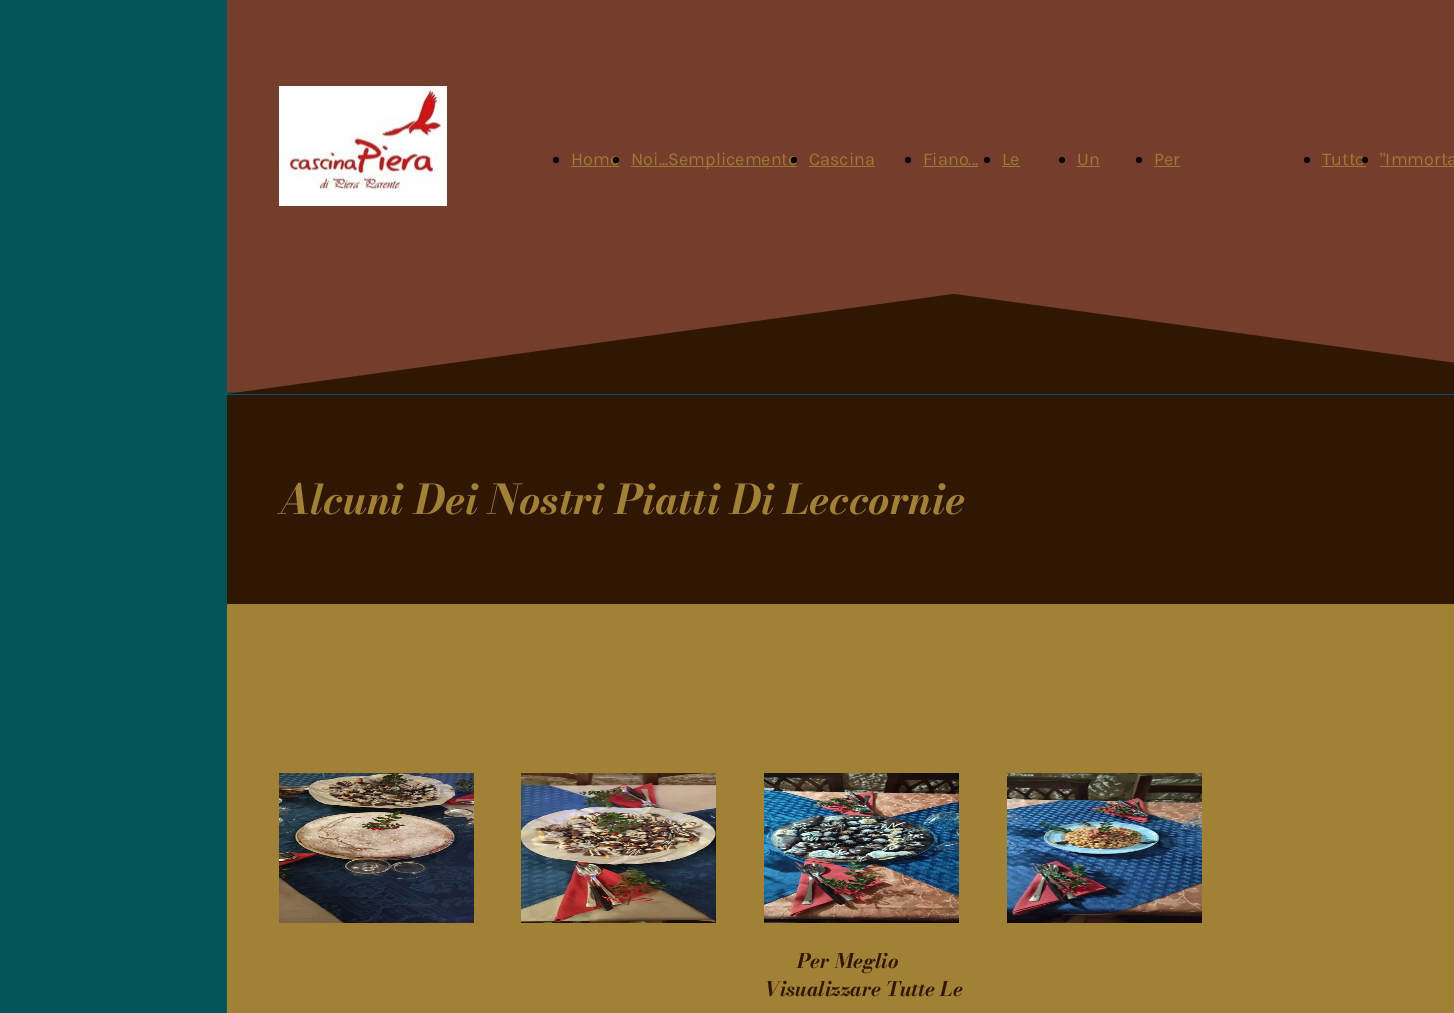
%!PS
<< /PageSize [1454 1013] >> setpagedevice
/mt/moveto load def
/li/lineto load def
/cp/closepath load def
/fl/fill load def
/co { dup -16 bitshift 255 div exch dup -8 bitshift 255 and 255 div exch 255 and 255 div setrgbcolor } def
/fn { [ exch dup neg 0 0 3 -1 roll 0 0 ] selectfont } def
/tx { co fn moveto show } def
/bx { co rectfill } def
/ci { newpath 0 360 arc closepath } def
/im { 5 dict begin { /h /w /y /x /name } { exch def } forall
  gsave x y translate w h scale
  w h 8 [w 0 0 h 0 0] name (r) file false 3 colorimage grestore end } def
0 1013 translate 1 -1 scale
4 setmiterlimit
0 0 1454 1013 16#055459 bx
227 0 1227 392 16#753D2B bx
(media/1.raw) 279 86 168 120 im
16#000000 co
556 160 3 ci fl
571 166 48 1 16#9C7934 bx
631 166 166 1 16#9C7934 bx
809 166 66 1 16#9C7934 bx
16#000000 co
908 160 3 ci fl
923 166 55 1 16#9C7934 bx
16#000000 co
987 160 3 ci fl
1002 166 18 1 16#9C7934 bx
16#000000 co
1062 160 3 ci fl
1077 166 23 1 16#9C7934 bx
16#000000 co
1139 160 3 ci fl
1154 166 26 1 16#9C7934 bx
16#000000 co
1307 160 3 ci fl
1322 166 44 1 16#9C7934 bx
1380 166 74 1 16#9C7934 bx
16#301703 co
227 394 mt 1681 394 li 954 294 li cp fl
227 395 1227 209 16#301703 bx
227 604 1227 409 16#A18135 bx
(media/2.raw) 279 773 195 150 im
(media/3.raw) 521 773 195 150 im
(media/4.raw) 764 773 195 150 im
(media/5.raw) 1007 773 195 150 im
(Home) 571 165 /Karla-Regular 18 16#9C7934 tx
16#000000 co
616 160 3 ci fl
(Noi...Semplicemente) 631 165 /Karla-Regular 18 16#9C7934 tx
16#000000 co
794 160 3 ci fl
(Cascina) 809 165 /Karla-Regular 18 16#9C7934 tx
(Fiano...) 923 165 /Karla-Regular 18 16#9C7934 tx
(Le) 1002 165 /Karla-Regular 18 16#9C7934 tx
(Un) 1077 165 /Karla-Regular 18 16#9C7934 tx
(Per) 1154 165 /Karla-Regular 18 16#9C7934 tx
(Tutto) 1322 165 /Karla-Regular 18 16#9C7934 tx
16#000000 co
1365 160 3 ci fl
("Immorta) 1380 165 /Karla-Regular 18 16#9C7934 tx
(Alcuni Dei Nostri Piatti Di Leccornie) 279 514 /BodoniModa-BoldItalic 40.75 16#A18135 tx
(Per Meglio) 797 968 /BodoniModa-BoldItalic 20.1 16#301703 tx
(Visualizzare Tutte Le) 764 996 /BodoniModa-BoldItalic 20.1 16#301703 tx
showpage
